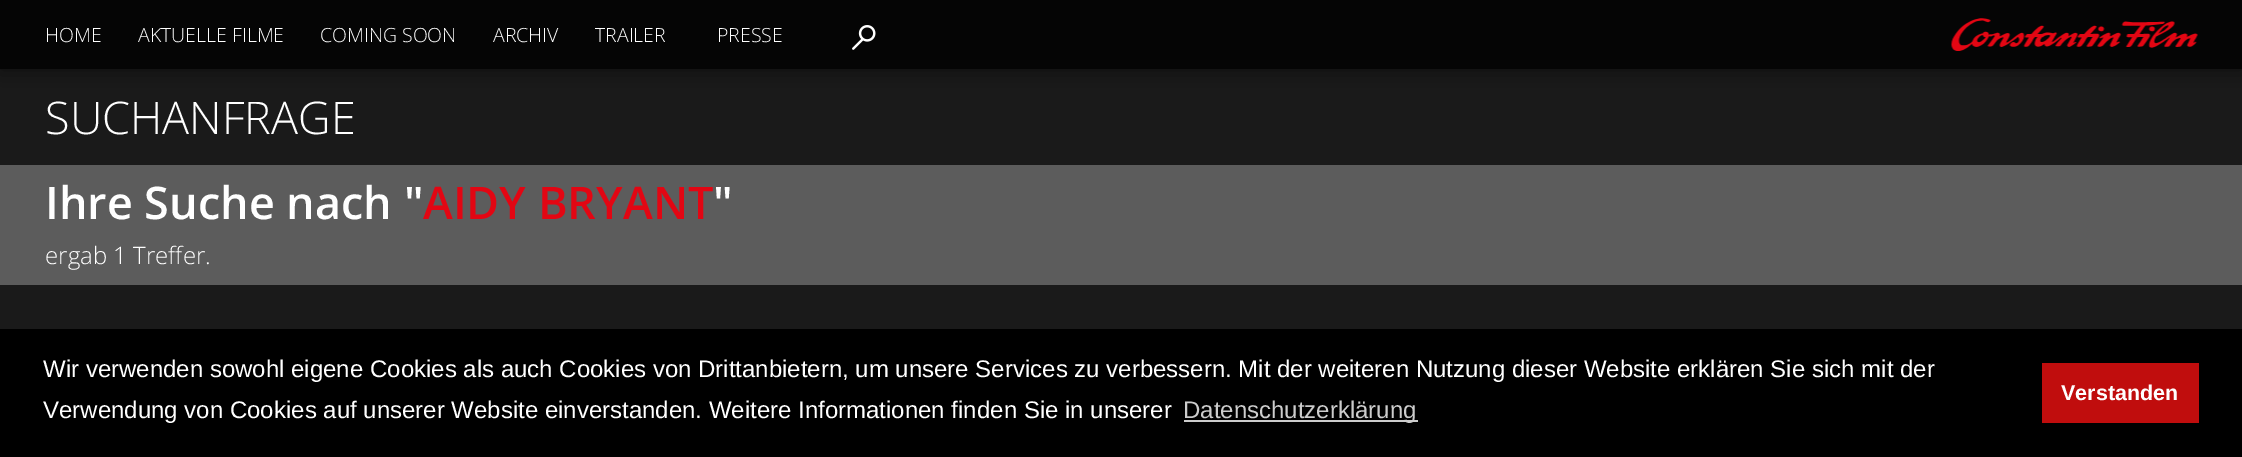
%!PS
<< /PageSize [2242 457] /PageUsesTransparency true >> setpagedevice
/co { dup -16 bitshift 255 div exch dup -8 bitshift 255 and 255 div exch 255 and 255 div setrgbcolor } def
/fn { [ exch dup neg 0 0 3 -1 roll 0 0 ] selectfont } def
/tx { co fn moveto show } def
/bx { co rectfill } def
/al { dup .setfillconstantalpha .setstrokeconstantalpha } def
/rr { 5 dict begin { /r /h /w /y /x } { exch def } forall
  x r add y moveto x w add y 2 copy h add r arct x w add y h add x 1 index r arct
  x y h add x y r arct x y 2 copy exch w add exch r arct closepath end } def
/sh { 12 dict begin { /a /b /q /h /w /y /x } { exch def } forall gsave /was 0 def
  9 -2 -9 { dup b mul 4 div /e exch def 1 sub .425 mul 2.718 exch exp 1 add a .99 .min exch div /now exch def
    1 1 now sub 1 was sub div sub al /was now def
    w h .min e 2 mul add 0 gt { x e sub y e sub w e 2 mul add h e 2 mul add
      q e add b .6 mul add w h .min 2 div e add .min 0 .max rr fill } if } for grestore end } def
/im { 5 dict begin { /h /w /y /x /name } { exch def } forall
  gsave x y translate w h scale
  w h 8 [w 0 0 h 0 0] name (r) file false 3 colorimage grestore end } def
0 .pushpdf14devicefilter
0 457 translate 1 -1 scale
4 setmiterlimit
0 0 2242 457 16#1A1A1A bx
16#000000 co
0 0 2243 69 0 11 .5 sh
0 0 2242 69 16#050505 bx
(media/1.raw) 852 25 24 25 im
(media/2.raw) 1951 18 247 33 im
0 165 2242 120 16#5C5C5C bx
0 329 2242 128 16#000000 bx
1184 420 234 2 16#CCCCCC bx
2042 363 157 60 16#C00D0D bx
(HOME) 45 42 /OpenSans-Light 19.5 16#FFFFFF tx
(AKTUELLE FILME) 138 42 /OpenSans-Light 19.5 16#FFFFFF tx
(COMING SOON) 320 42 /OpenSans-Light 19.5 16#FFFFFF tx
(ARCHIV) 493 42 /OpenSans-Light 19.5 16#FFFFFF tx
(TRAILER) 595 42 /OpenSans-Light 19.5 16#FFFFFF tx
(PRESSE) 717 42 /OpenSans-Light 19.5 16#FFFFFF tx
(SUCHANFRAGE) 45 134 /OpenSans-Light 45 16#FFFFFF tx
(Ihre Suche nach ") 45 219 /OpenSans-SemiBold 45 16#FFFFFF tx
(AIDY BRYANT) 423 219 /OpenSans-SemiBold 45 16#E20613 tx
(") 713 219 /OpenSans-SemiBold 45 16#FFFFFF tx
(ergab 1 Treffer.) 45 264 /OpenSans-Light 24 16#FFFFFF tx
(Wir verwenden sowohl eigene Cookies als auch Cookies von Drittanbietern, um unsere Services zu verbessern. Mit der weiteren Nutzung dieser Website erklären Sie sich mit der) 43 377 /LiberationSans-Regular 24 16#FFFFFF tx
(Verwendung von Cookies auf unserer Website einverstanden. Weitere Informationen finden Sie in unserer) 43 418 /LiberationSans-Regular 24 16#FFFFFF tx
(Datenschutzerklärung) 1183 418 /LiberationSans-Regular 24 16#CCCCCC tx
(Verstanden) 2061 400 /LiberationSans-Bold 21.5 16#FFFFFF tx
.poppdf14devicefilter showpage
